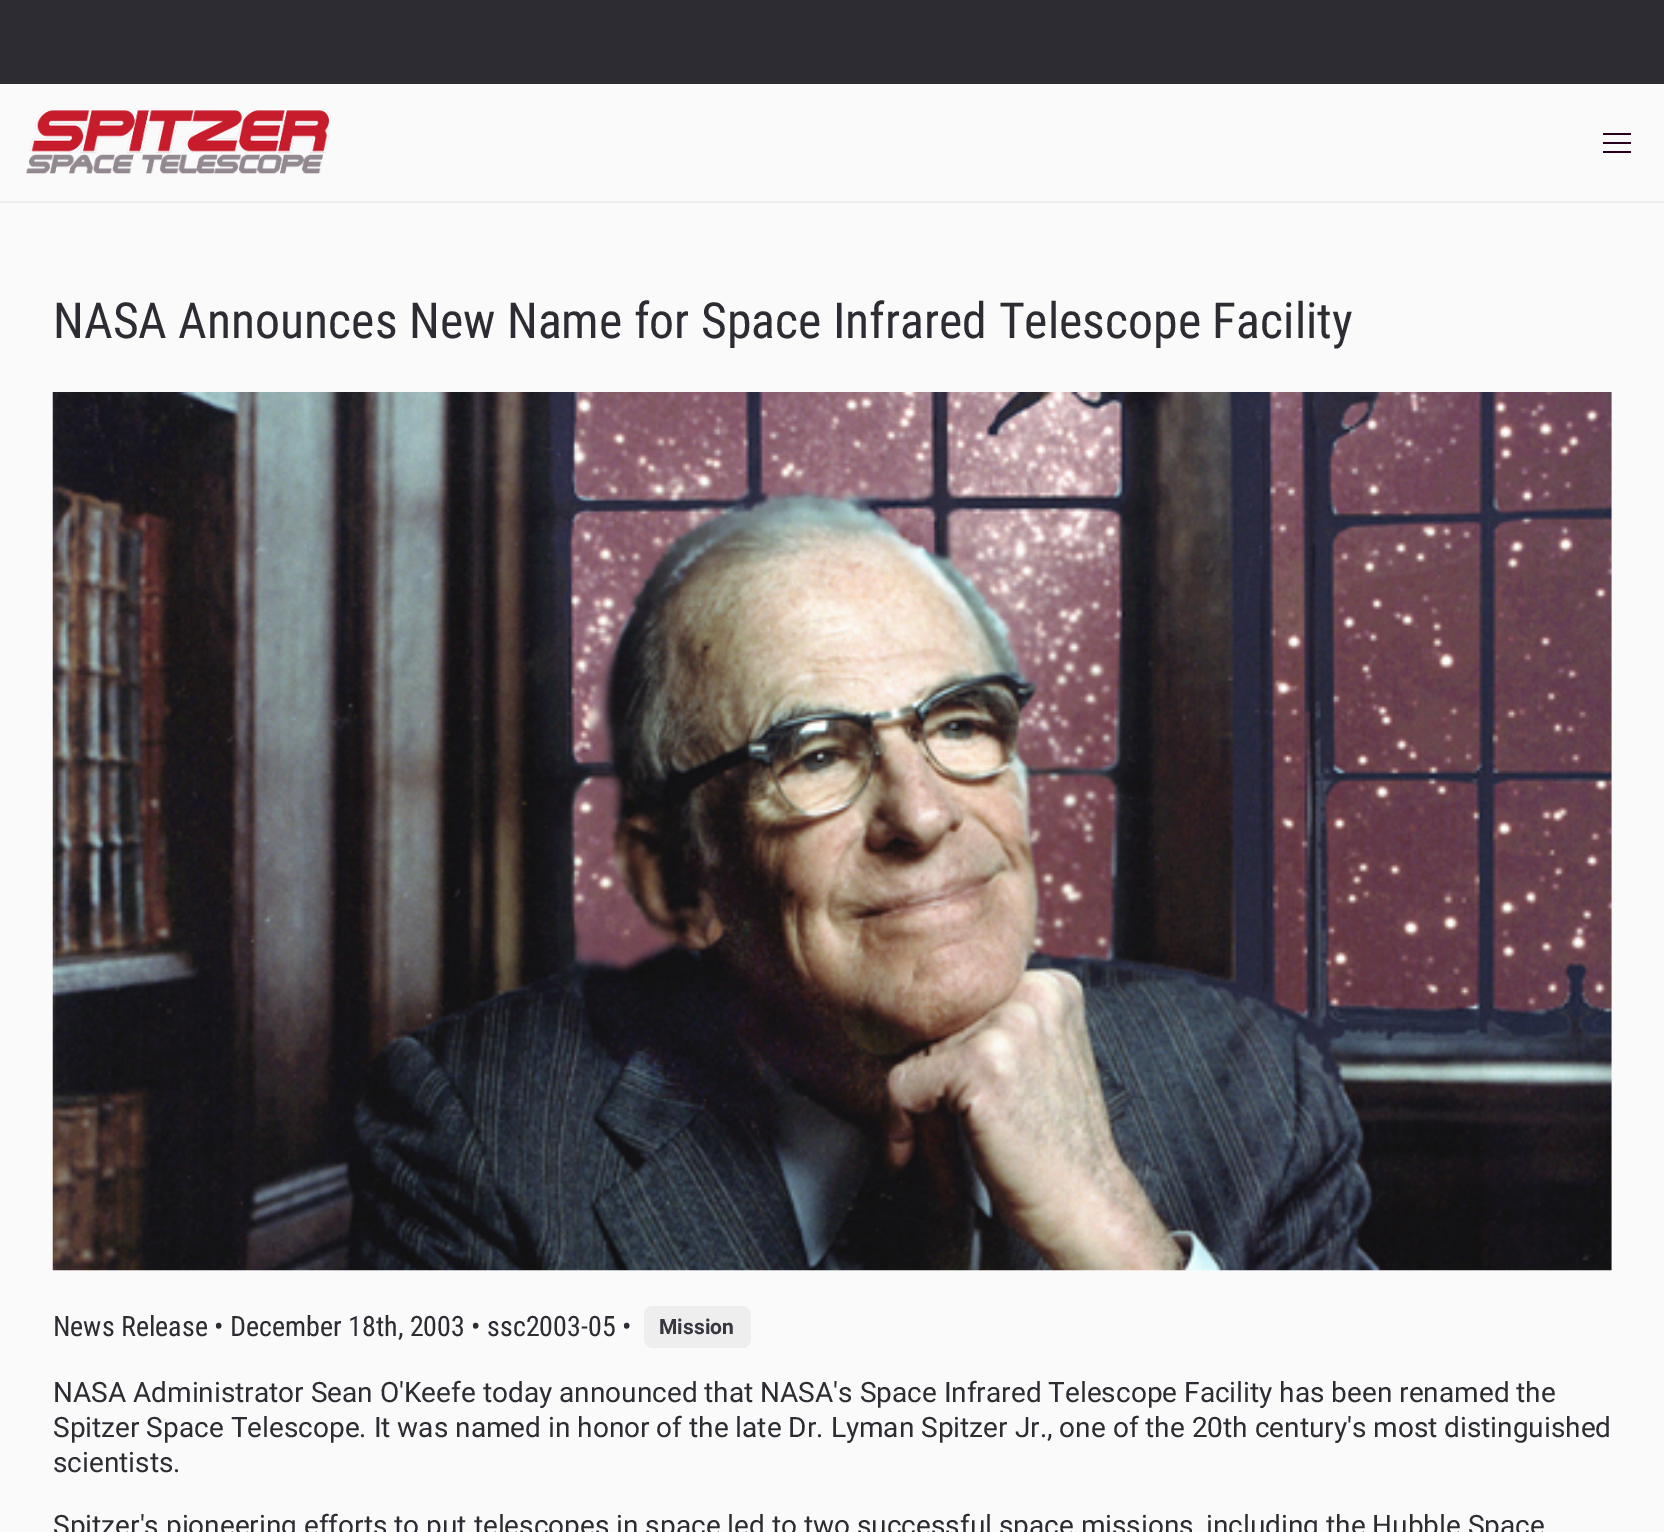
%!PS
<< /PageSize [1664 1532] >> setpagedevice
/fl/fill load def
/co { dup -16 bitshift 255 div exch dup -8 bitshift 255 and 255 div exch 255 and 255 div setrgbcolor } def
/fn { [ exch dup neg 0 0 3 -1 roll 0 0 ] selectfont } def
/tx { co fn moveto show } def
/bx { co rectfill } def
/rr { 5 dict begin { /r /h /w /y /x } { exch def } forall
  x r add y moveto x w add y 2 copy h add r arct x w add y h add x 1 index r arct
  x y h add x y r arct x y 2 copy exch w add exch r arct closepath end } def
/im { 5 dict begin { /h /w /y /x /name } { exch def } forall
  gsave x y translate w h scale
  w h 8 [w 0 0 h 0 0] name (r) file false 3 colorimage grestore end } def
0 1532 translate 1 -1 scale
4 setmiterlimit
0 0 1664 1532 16#FAFAFA bx
0 0 1664 84 16#2D2C33 bx
0 201 1664 2 16#EEEEEE bx
(media/1.raw) 26 108 305 66 im
1603 133 28 2 16#26001B bx
1603 142 28 2 16#26001B bx
1603 151 28 2 16#26001B bx
(media/2.raw) 52 392 1560 879 im
16#EEEEEE co
644 1306 107 42 9 rr fl
(NASA Announces New Name for Space Infrared Telescope Facility) 53 338 /RobotoCondensed-Regular 49.75 16#2D2C33 tx
(News Release • December 18th, 2003 • ssc2003-05 •) 53 1336 /RobotoCondensed-Regular 28 16#2D2C33 tx
(Mission) 659 1334 /Roboto-Bold 21 16#383740 tx
(NASA Administrator Sean O'Keefe today announced that NASA's Space Infrared Telescope Facility has been renamed the) 53 1402 /Roboto-Regular 28 16#2D2C33 tx
(Spitzer Space Telescope. It was named in honor of the late Dr. Lyman Spitzer Jr., one of the 20th century's most distinguished) 53 1437 /Roboto-Regular 28 16#2D2C33 tx
(scientists.) 53 1472 /Roboto-Regular 28 16#2D2C33 tx
(Spitzer's pioneering efforts to put telescopes in space led to two successful space missions, including the Hubble Space) 53 1535 /Roboto-Regular 28 16#2D2C33 tx
showpage
